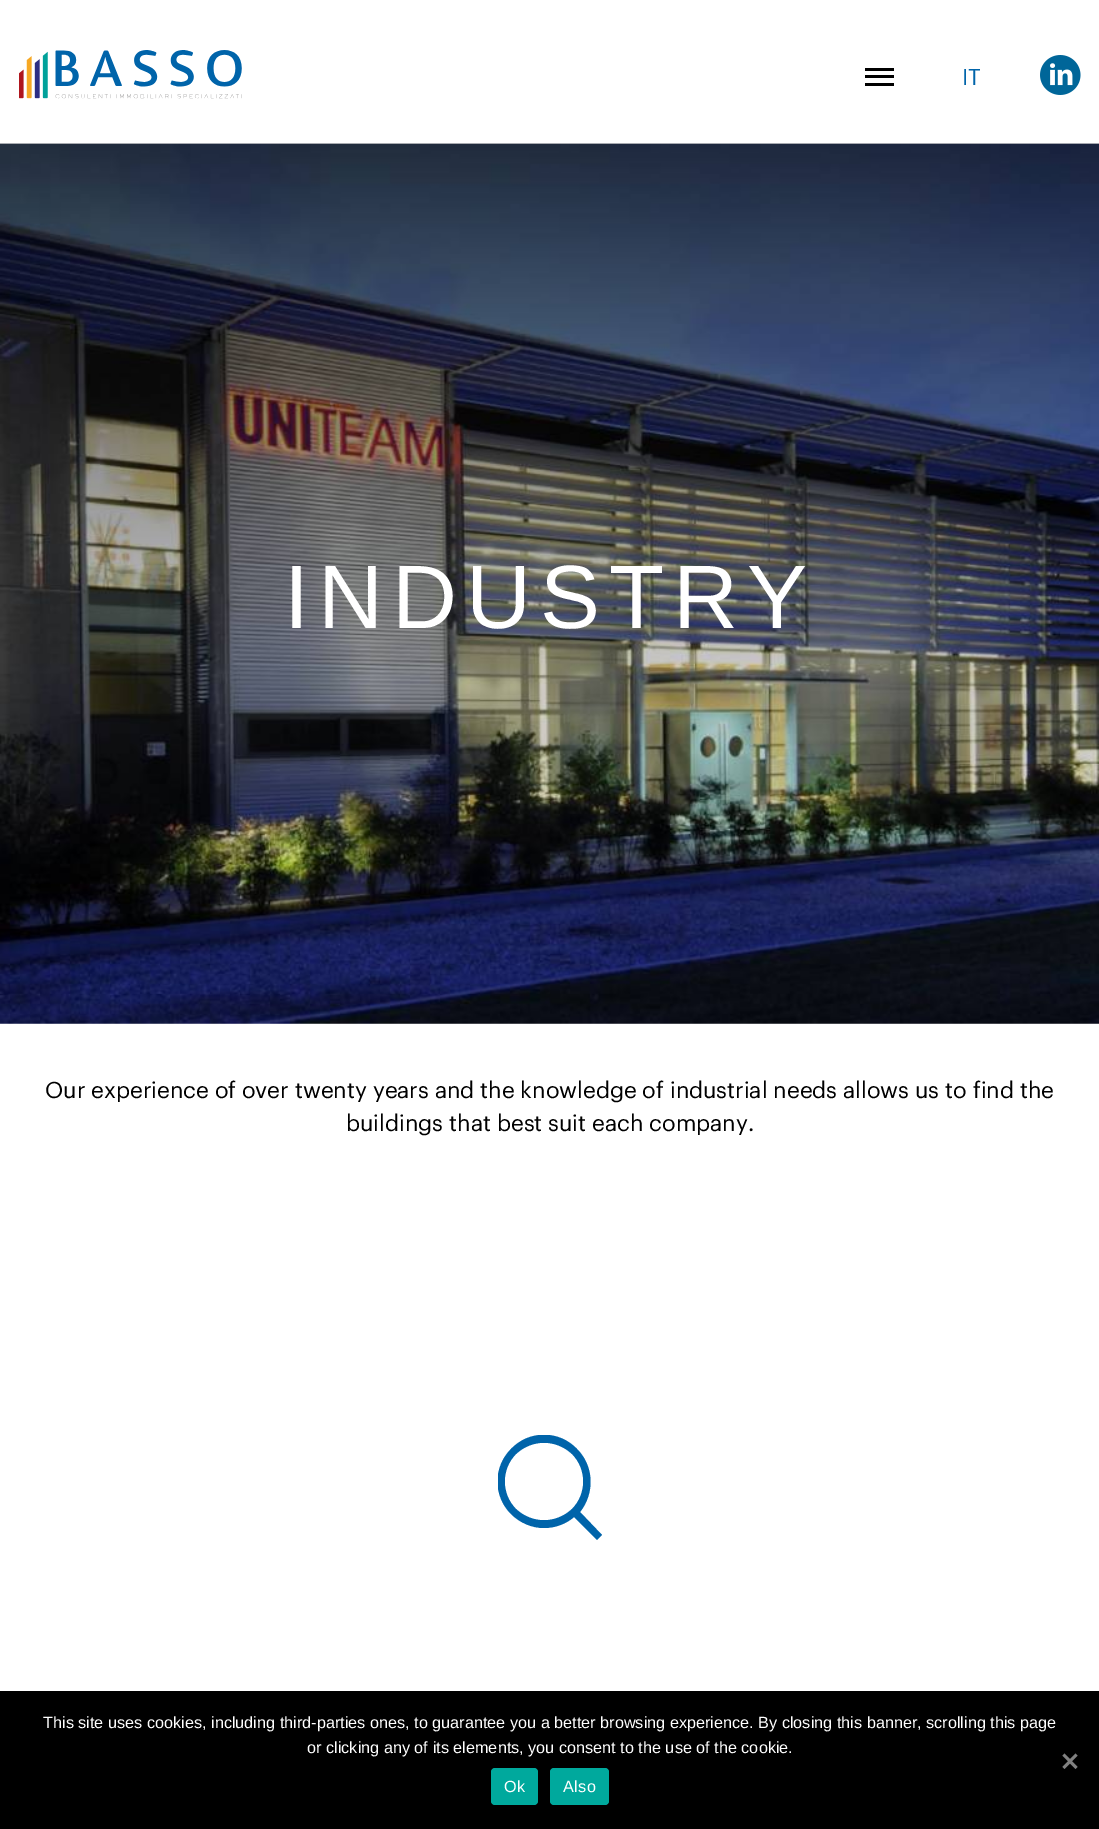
%!PS
<< /PageSize [1099 1829] >> setpagedevice
/mt/moveto load def
/li/lineto load def
/ct/curveto load def
/cp/closepath load def
/fl/fill load def
/gs/gsave load def
/gr/grestore load def
/co { dup -16 bitshift 255 div exch dup -8 bitshift 255 and 255 div exch 255 and 255 div setrgbcolor } def
/fn { [ exch dup neg 0 0 3 -1 roll 0 0 ] selectfont } def
/tx { co fn moveto show } def
/bx { co rectfill } def
/rr { 5 dict begin { /r /h /w /y /x } { exch def } forall
  x r add y moveto x w add y 2 copy h add r arct x w add y h add x 1 index r arct
  x y h add x y r arct x y 2 copy exch w add exch r arct closepath end } def
/im { 5 dict begin { /h /w /y /x /name } { exch def } forall
  gsave x y translate w h scale
  w h 8 [w 0 0 h 0 0] name (r) file false 3 colorimage grestore end } def
0 1829 translate 1 -1 scale
4 setmiterlimit
0 0 1099 1829 16#FFFFFF bx
0 143 1099 1 16#D5D6D7 bx
(media/1.raw) 19 50 223 49 im
865 68 29 3 16#000000 bx
865 75 29 3 16#000000 bx
865 83 29 3 16#000000 bx
(media/2.raw) 1040 55 41 40 im
(media/3.raw) 0 143 1099 881 im
gs
498 1435 105 105 rectclip
16#0064AA co
544 1528 mt 555 1528 566 1524 574 1517 ct 597 1540 li 602 1535 li 580 1512 li 595 1493 594 1466 577 1449 ct 559 1430 529 1430 511 1449 ct 493 1467 493 1496 511 1514 ct 520 1523 532 1528 544 1528 ct cp 516 1454 mt 532 1439 556 1439 572 1454 ct 587 1469 587 1494 572 1509 ct 556 1524 532 1524 516 1509 ct 501 1494 501 1469 516 1454 ct cp fl
gr
0 1691 1099 138 16#000000 bx
16#808080 co
1075.5 1753.5 mt 1077.5 1755.5 li 1064.5 1769 li 1062.5 1767 li cp fl
1062.5 1755.5 mt 1064.5 1753.5 li 1077.5 1767 li 1075.5 1769 li cp fl
16#00A99D co
491 1768 47 37 4 rr fl
550 1768 59 37 4 rr fl
(IT) 962 85 /Graphik-Regular 22.5 16#0064AA tx
/LiberationSans-Regular 90 fn
16#FFFFFF co
284 628 mt 9 0 (INDUSTRY) ashow
(Our experience of over twenty years and the knowledge of industrial needs allows us to find the) 45 1098 /Graphik-Regular 22.5 16#000000 tx
(buildings that best suit each company.) 346 1131 /Graphik-Regular 22.5 16#000000 tx
(This site uses cookies, including third-parties ones, to guarantee you a better browsing experience. By closing this banner, scrolling this page) 43 1728 /LiberationSans-Regular 16.25 16#FFFFFF tx
(or clicking any of its elements, you consent to the use of the cookie.) 307 1753 /LiberationSans-Regular 16.25 16#FFFFFF tx
504 1792 mt .5 0 (Ok) ashow
563 1792 mt .5 0 (Also) ashow
showpage
